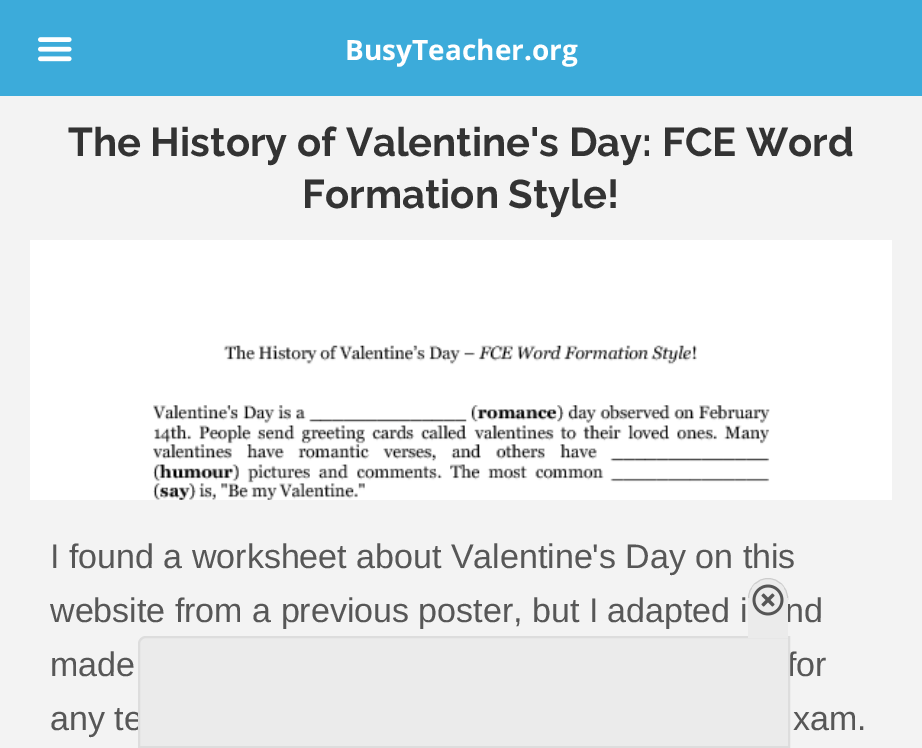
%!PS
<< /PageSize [922 748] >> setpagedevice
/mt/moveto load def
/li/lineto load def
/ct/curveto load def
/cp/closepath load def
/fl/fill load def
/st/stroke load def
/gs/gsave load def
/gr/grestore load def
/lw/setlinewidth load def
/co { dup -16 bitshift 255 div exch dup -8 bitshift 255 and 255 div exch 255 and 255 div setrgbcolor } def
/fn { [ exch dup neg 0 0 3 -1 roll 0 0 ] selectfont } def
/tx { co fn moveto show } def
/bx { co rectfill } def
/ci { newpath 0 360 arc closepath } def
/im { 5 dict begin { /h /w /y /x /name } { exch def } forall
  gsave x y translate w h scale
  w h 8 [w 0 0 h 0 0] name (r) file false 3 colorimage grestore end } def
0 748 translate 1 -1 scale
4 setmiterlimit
0 0 922 748 16#F3F3F3 bx
0 0 922 96 16#3CABDA bx
(media/1.raw) 38 37 34 25 im
(media/2.raw) 30 240 862 260 im
(BusyTeacher.org) 345 60 /OpenSans-Bold 28 16#FFFFFF tx
(The History of Valentine's Day: FCE Word) 68 156 /Raleway-Bold 40 16#333333 tx
(Formation Style!) 302 208 /Raleway-Bold 40 16#333333 tx
(I found a worksheet about Valentine's Day on this) 50 568 /LiberationSans-Regular 34 16#575757 tx
(website from a previous poster, but I adapted i) 50 622 /LiberationSans-Regular 34 16#575757 tx
(nd) 785 622 /LiberationSans-Regular 34 16#575757 tx
(made) 50 676 /LiberationSans-Regular 34 16#575757 tx
(for) 787 676 /LiberationSans-Regular 34 16#575757 tx
(any te) 50 730 /LiberationSans-Regular 34 16#575757 tx
(xam.) 793 730 /LiberationSans-Regular 34 16#575757 tx
16#EBEBEB co
146 637 mt 789 637 li 789 747 li 139 747 li 139 644 li 139 640 142 637 146 637 ct cp gs fl gr
16#DDDDDD co
2 lw
st
16#EBEBEB co
768 598 19.5 ci gs fl gr
16#CCCCCC co
.9 lw
st
748 598 40 40 16#EBEBEB bx
(media/3.raw) 752 584 32 32 im
showpage
